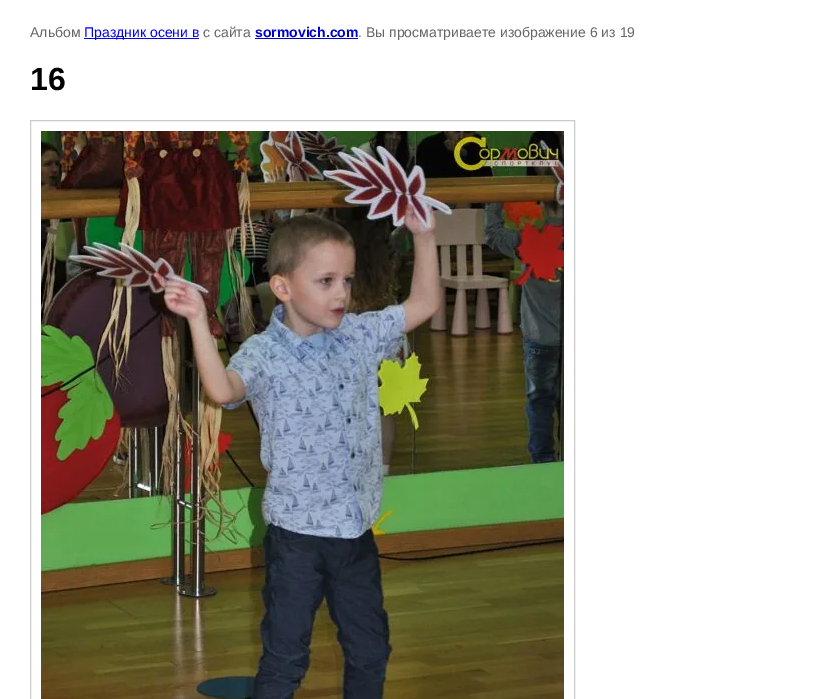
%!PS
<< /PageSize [839 699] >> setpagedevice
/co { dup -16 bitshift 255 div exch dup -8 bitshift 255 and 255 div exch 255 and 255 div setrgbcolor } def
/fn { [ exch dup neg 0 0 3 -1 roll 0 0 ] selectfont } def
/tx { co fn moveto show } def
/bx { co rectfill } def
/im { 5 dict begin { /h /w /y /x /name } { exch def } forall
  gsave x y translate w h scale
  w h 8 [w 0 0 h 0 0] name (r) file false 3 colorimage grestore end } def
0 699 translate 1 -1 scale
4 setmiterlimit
0 0 839 699 16#FFFFFF bx
84 38 115 1 16#0000FF bx
255 38 103 1 16#0000CC bx
16#CCCCCC co
30.5 120.5 544 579 rectstroke
(media/1.raw) 41 131 523 568 im
(Альбом) 30 37 /LiberationSans-Regular 14 16#666666 tx
(Праздник осени в) 84 37 /LiberationSans-Regular 14 16#0000FF tx
(с сайта) 203 37 /LiberationSans-Regular 14 16#666666 tx
(sormovich.com) 255 37 /LiberationSans-Bold 14 16#0000CC tx
(. Вы просматриваете изображение 6 из 19) 358 37 /LiberationSans-Regular 14 16#666666 tx
(16) 30 90 /LiberationSans-Bold 32 16#000000 tx
showpage
